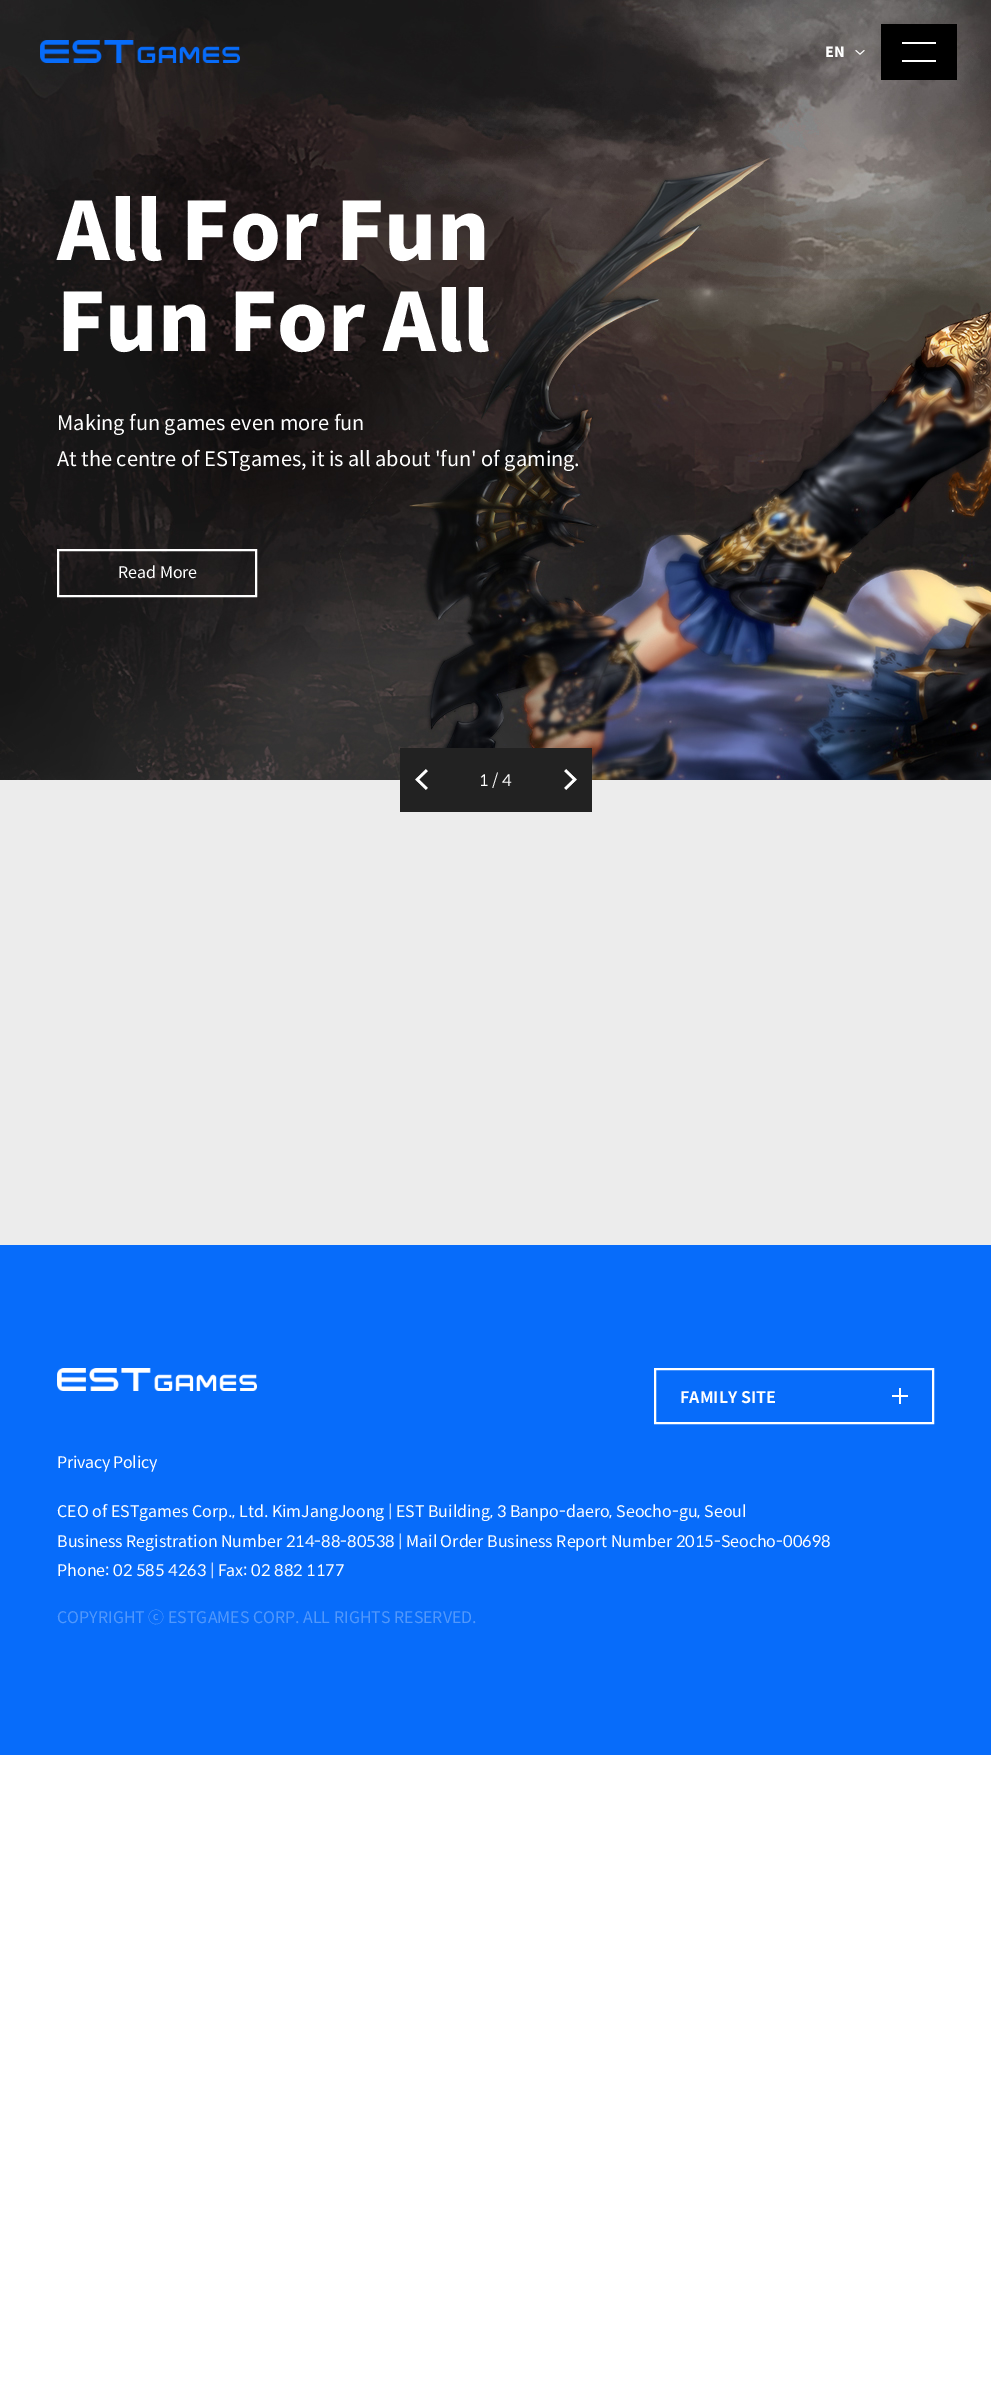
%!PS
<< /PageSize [991 2388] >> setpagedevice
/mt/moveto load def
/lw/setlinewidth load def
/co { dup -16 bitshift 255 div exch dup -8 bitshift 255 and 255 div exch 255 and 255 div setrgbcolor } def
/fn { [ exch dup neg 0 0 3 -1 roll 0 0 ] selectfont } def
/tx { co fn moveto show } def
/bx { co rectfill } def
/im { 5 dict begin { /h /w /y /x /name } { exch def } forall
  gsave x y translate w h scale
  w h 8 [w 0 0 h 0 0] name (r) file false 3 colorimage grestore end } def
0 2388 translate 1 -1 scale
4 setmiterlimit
0 0 991 2388 16#FFFFFF bx
(media/3.raw) 0 0 991 780 im
(media/1.raw) 40 40 200 23 im
(media/2.raw) 855 50 10 5 im
881 24 76 56 16#000000 bx
902 42 34 2 16#FFFFFF bx
902 60 34 2 16#FFFFFF bx
0 780 991 465 16#ECECEC bx
400 748 192 64 16#222222 bx
(media/4.raw) 415 769 13 21 im
(media/5.raw) 564 769 13 21 im
16#FFFFFF co
2 lw
58 550 198 46 rectstroke
0 1245 991 510 16#076CFA bx
16#FFFFFF co
655 1369 278 54 rectstroke
899 1388 2 16 16#FFFFFF bx
892 1395 16 2 16#FFFFFF bx
(media/6.raw) 57 1368 200 23 im
(EN) 825 57 /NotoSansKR-Black 14 16#FFFFFF tx
(All For Fun) 57 260 /NotoSansKR-Black 80 16#FFFFFF tx
(Fun For All) 57 351 /NotoSansKR-Black 80 16#FFFFFF tx
(Making fun games even more fun) 57 430 /NotoSansKR-Regular 20 16#FFFFFF tx
(At the centre of ESTgames, it is all about 'fun' of gaming.) 57 466 /NotoSansKR-Regular 20 16#FFFFFF tx
(Read More) 118 578 /NotoSansKR-Regular 16 16#FFFFFF tx
(1 / 4) 479 786 /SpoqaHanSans-Regular 16 16#FFFFFF tx
(FAMILY SITE) 680 1403 /SpoqaHanSans-Bold 16 16#FFFFFF tx
/SpoqaHanSans-Regular 16 fn
57 1468 mt -.25 0 (Privacy Policy) ashow
(CEO of ESTgames Corp., Ltd. KimJangJoong | EST Building, 3 Banpo-daero, Seocho-gu, Seoul) 57 1517 /SpoqaHanSans-Regular 16 16#FFFFFF tx
(Business Registration Number 214-88-80538 | Mail Order Business Report Number 2015-Seocho-00698) 57 1547 /SpoqaHanSans-Regular 16 16#FFFFFF tx
(Phone: 02 585 4263 | Fax: 02 882 1177) 57 1576 /SpoqaHanSans-Regular 16 16#FFFFFF tx
(COPYRIGHT ⓒ ESTGAMES CORP. ALL RIGHTS RESERVED.) 57 1623 /SpoqaHanSans-Regular 16 16#5198FC tx
showpage
